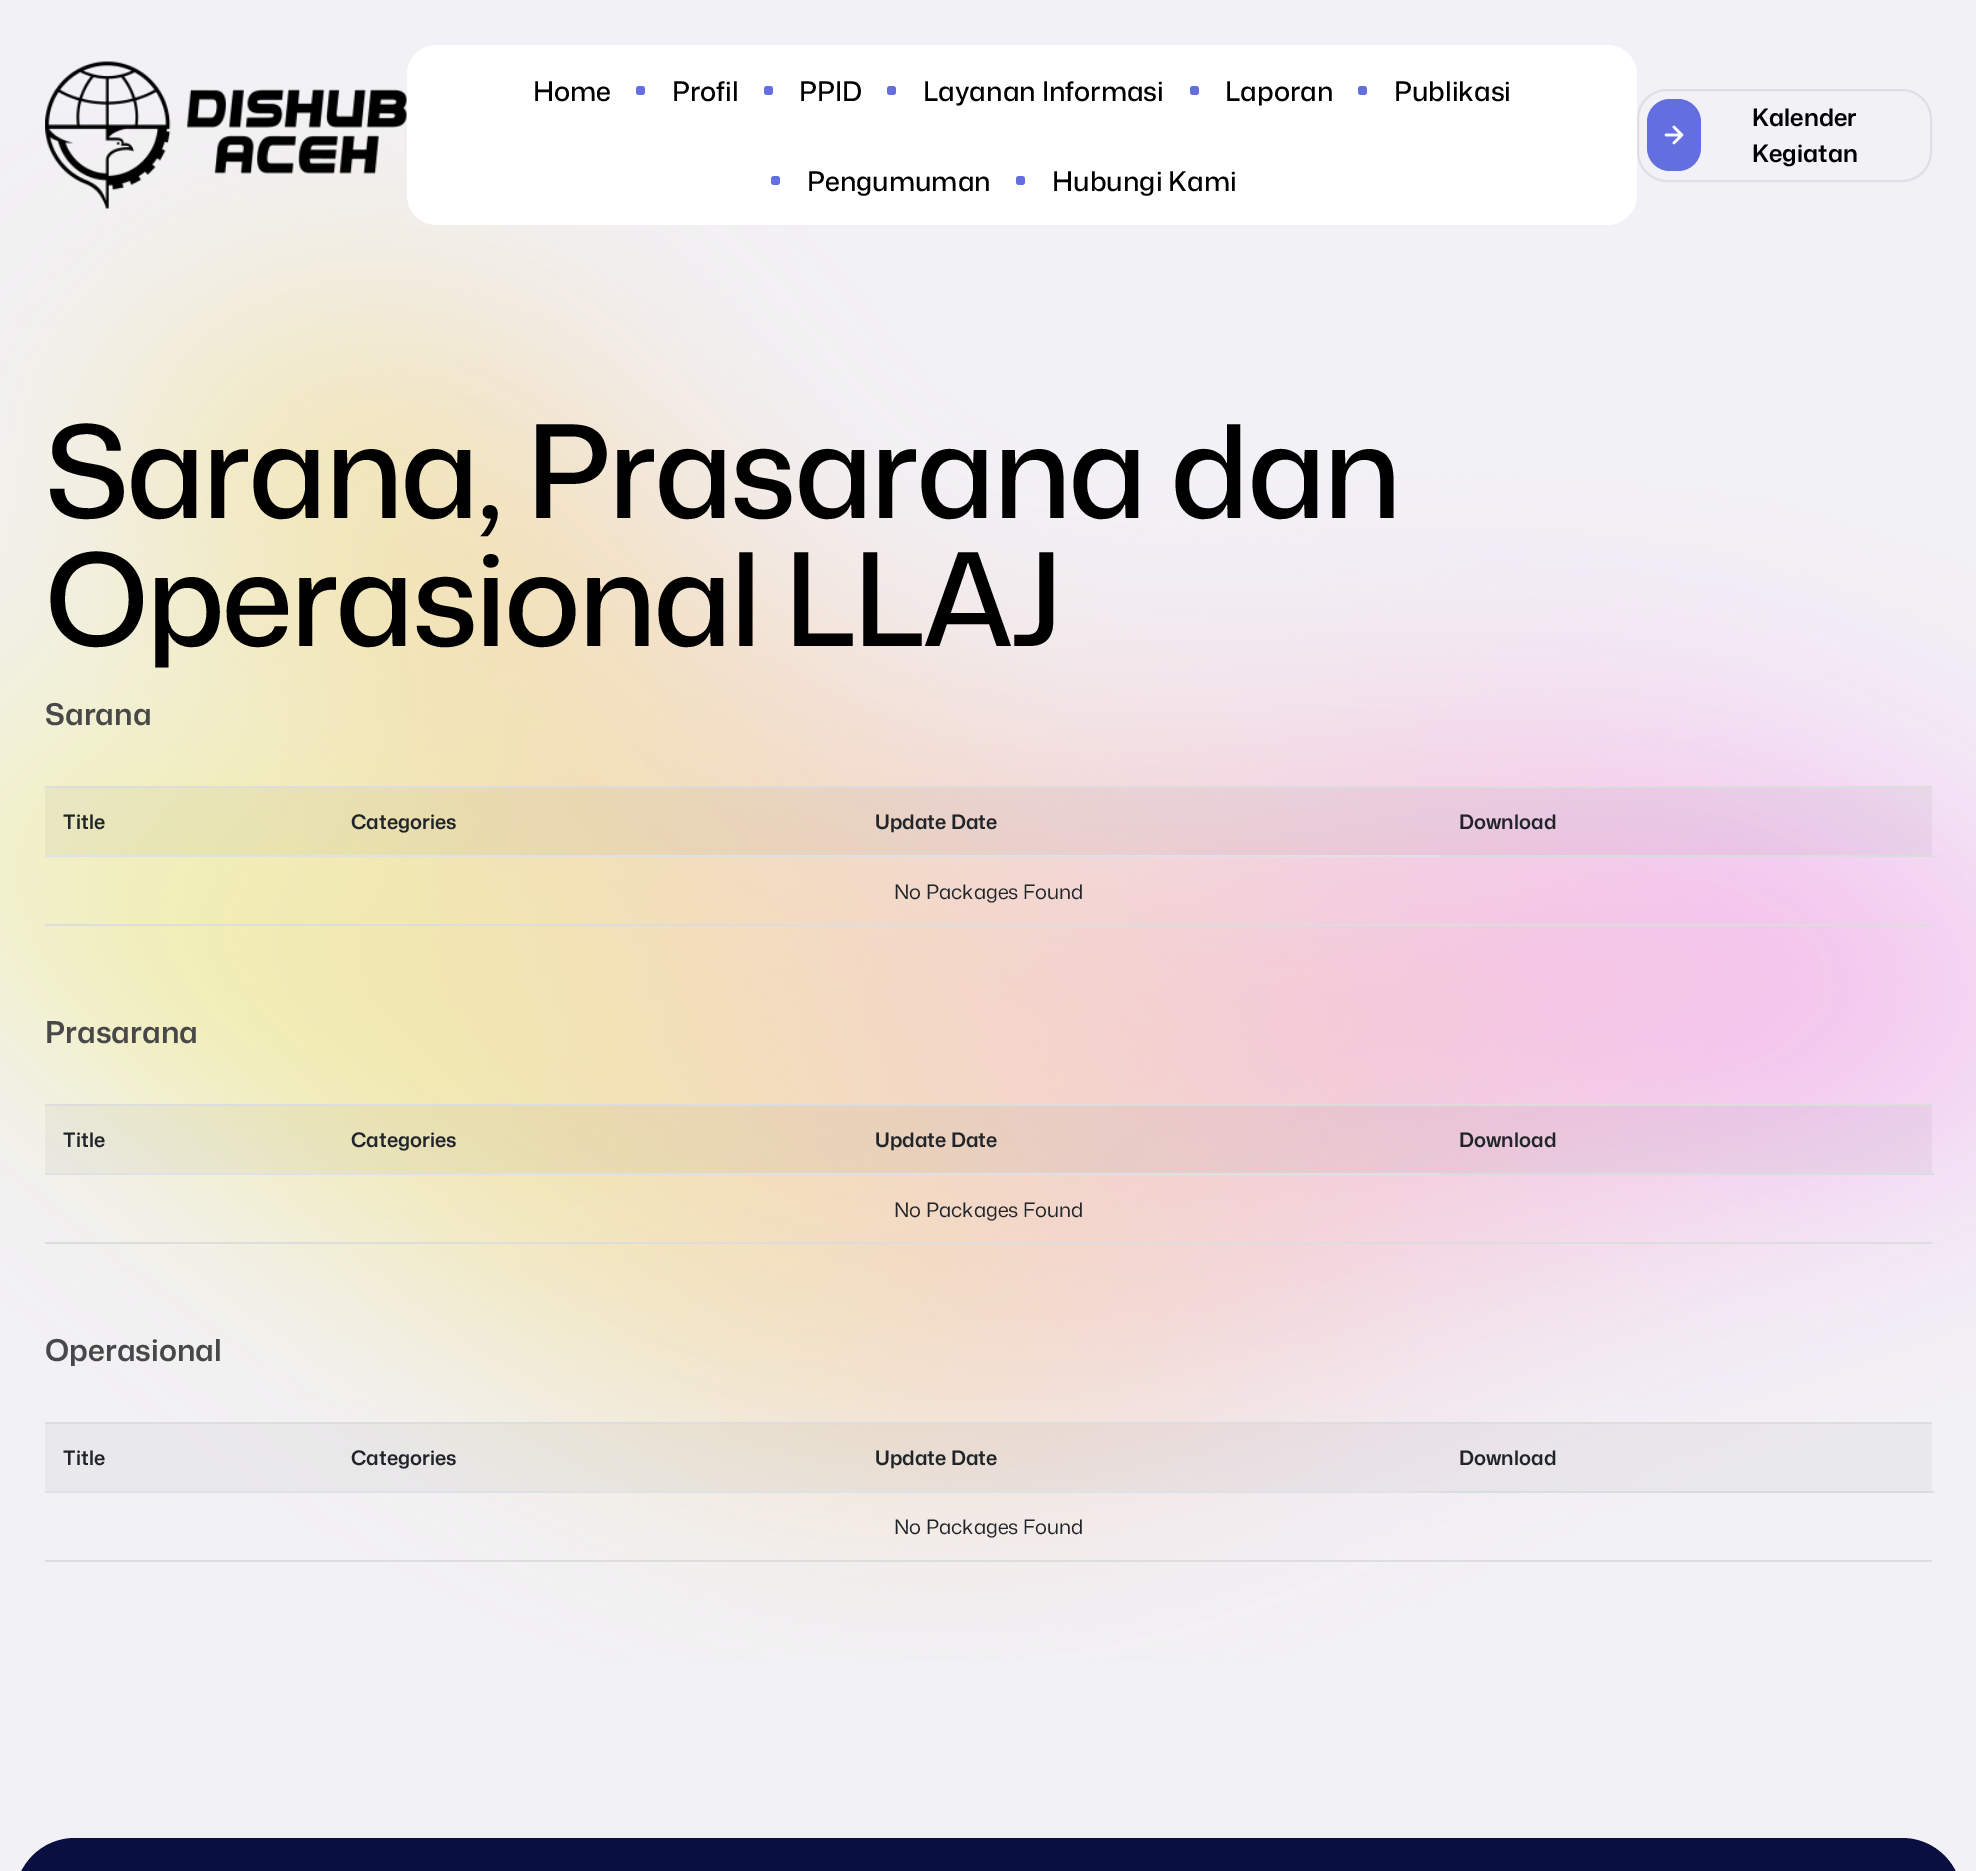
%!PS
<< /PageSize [1976 1871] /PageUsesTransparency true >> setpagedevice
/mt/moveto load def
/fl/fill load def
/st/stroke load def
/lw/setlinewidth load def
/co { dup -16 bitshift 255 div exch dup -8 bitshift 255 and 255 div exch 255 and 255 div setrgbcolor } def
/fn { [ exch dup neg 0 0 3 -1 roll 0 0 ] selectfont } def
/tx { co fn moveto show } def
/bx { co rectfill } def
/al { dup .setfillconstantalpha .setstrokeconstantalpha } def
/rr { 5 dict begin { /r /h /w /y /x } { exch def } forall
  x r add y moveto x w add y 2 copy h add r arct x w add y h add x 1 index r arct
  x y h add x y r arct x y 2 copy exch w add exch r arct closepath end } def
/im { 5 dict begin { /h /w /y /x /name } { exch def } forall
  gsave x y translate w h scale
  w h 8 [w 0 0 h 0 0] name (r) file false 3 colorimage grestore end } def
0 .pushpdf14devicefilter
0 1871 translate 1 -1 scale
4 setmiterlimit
0 0 1976 1871 16#F2F1F6 bx
(media/1.raw) 0 109 1976 1552 im
(media/2.raw) 45 61 362 148 im
16#FFFFFF co
407 45 1230 180 30 rr fl
16#636EDF co
636 86 9 9 3 rr fl
764 86 9 9 3 rr fl
887 86 9 9 3 rr fl
1190 86 9 9 3 rr fl
1358 86 9 9 3 rr fl
771 176 9 9 3 rr fl
1016 176 9 9 3 rr fl
16#DFDEE5 co
2 lw
1638 90 293 91 29 rr st
16#636EDF co
1647 99 54 72 23 rr fl
(media/3.raw) 1664 125 20 20 im
45 786 1887 2 16#DDDDDD bx
45 924 1887 2 16#DDDDDD bx
0.04 al
45 788 288 67 16#000000 bx
333 788 524 67 16#000000 bx
857 788 583 67 16#000000 bx
1440 788 492 67 16#000000 bx
1 al
1440 855 494 2 16#D9DDE0 bx
45 855 1395 2 16#DEE2E6 bx
45 1104 1887 2 16#DDDDDD bx
45 1242 1887 2 16#DDDDDD bx
0.04 al
45 1106 288 67 16#000000 bx
333 1106 524 67 16#000000 bx
857 1106 583 67 16#000000 bx
1440 1106 492 67 16#000000 bx
1 al
1440 1173 494 2 16#D9DDE0 bx
45 1173 1395 2 16#DEE2E6 bx
45 1422 1887 2 16#DDDDDD bx
45 1560 1887 2 16#DDDDDD bx
0.04 al
45 1424 288 67 16#000000 bx
333 1424 524 67 16#000000 bx
857 1424 583 67 16#000000 bx
1440 1424 492 67 16#000000 bx
1 al
1440 1491 494 2 16#D9DDE0 bx
45 1491 1395 2 16#DEE2E6 bx
16#0A0F42 co
15 1838 1947 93 60 rr fl
(Home) 533 101 /MonaSans-Medium 27 16#000000 tx
(Profil) 672 101 /MonaSans-Medium 27 16#000000 tx
(PPID) 799 101 /MonaSans-Medium 27 16#000000 tx
(Layanan Informasi) 923 101 /MonaSans-Medium 27 16#000000 tx
(Laporan) 1225 101 /MonaSans-Medium 27 16#000000 tx
(Publikasi) 1394 101 /MonaSans-Medium 27 16#000000 tx
(Pengumuman) 807 191 /MonaSans-Medium 27 16#000000 tx
(Hubungi Kami) 1052 191 /MonaSans-Medium 27 16#000000 tx
(Kalender) 1752 126 /MonaSans-SemiBold 24 16#000000 tx
(Kegiatan) 1752 162 /MonaSans-SemiBold 24 16#000000 tx
/MonaSans-Medium 128.5 fn
45 518 mt -3 0 (Sarana, Prasarana dan) ashow
45 646 mt -3 0 (Operasional LLAJ) ashow
(Sarana) 45 725 /MonaSans-SemiBold 30 16#484848 tx
(Title) 63 829 /MonaSans-SemiBold 20 16#212529 tx
(Categories) 351 829 /MonaSans-SemiBold 20 16#212529 tx
(Update Date) 875 829 /MonaSans-SemiBold 20 16#212529 tx
(Download) 1459 829 /MonaSans-SemiBold 20 16#212529 tx
(No Packages Found) 894 899 /MonaSans-Regular 20 16#212529 tx
(Prasarana) 45 1043 /MonaSans-SemiBold 30 16#484848 tx
(Title) 63 1147 /MonaSans-SemiBold 20 16#212529 tx
(Categories) 351 1147 /MonaSans-SemiBold 20 16#212529 tx
(Update Date) 875 1147 /MonaSans-SemiBold 20 16#212529 tx
(Download) 1459 1147 /MonaSans-SemiBold 20 16#212529 tx
(No Packages Found) 894 1217 /MonaSans-Regular 20 16#212529 tx
(Operasional) 45 1361 /MonaSans-SemiBold 30 16#484848 tx
(Title) 63 1465 /MonaSans-SemiBold 20 16#212529 tx
(Categories) 351 1465 /MonaSans-SemiBold 20 16#212529 tx
(Update Date) 875 1465 /MonaSans-SemiBold 20 16#212529 tx
(Download) 1459 1465 /MonaSans-SemiBold 20 16#212529 tx
(No Packages Found) 894 1534 /MonaSans-Regular 20 16#212529 tx
.poppdf14devicefilter showpage
